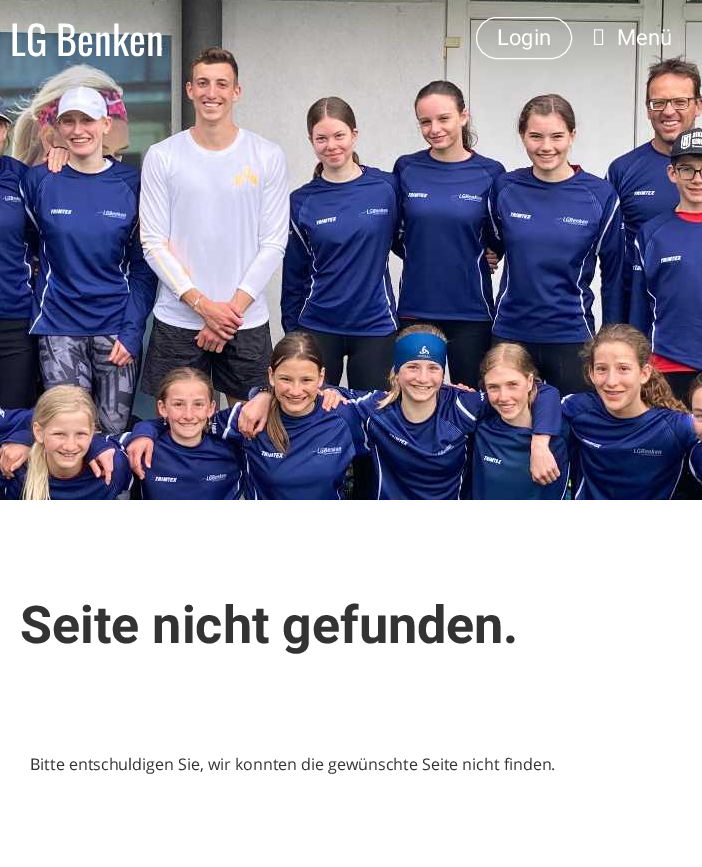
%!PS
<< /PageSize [702 867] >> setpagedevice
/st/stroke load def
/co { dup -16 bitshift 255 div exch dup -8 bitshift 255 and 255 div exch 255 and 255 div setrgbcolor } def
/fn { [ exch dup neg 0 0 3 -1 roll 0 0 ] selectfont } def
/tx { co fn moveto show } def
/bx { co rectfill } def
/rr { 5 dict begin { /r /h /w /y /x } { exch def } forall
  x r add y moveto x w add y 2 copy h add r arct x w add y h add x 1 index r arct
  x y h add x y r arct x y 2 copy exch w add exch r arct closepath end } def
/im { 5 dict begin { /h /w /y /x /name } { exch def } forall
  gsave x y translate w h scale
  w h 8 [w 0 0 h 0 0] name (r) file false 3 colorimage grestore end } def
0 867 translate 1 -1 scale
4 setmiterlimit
0 0 702 867 16#FFFFFF bx
(media/2.raw) 0 0 702 500 im
476.5 17.5 95 41 20.5 rr st
(media/1.raw) 594 29 10 16 im
(LG Benken) 10 56 /Oswald-Regular 40 16#FFFFFF tx
(Login) 497 45 /Roboto-Regular 22 16#FFFFFF tx
(Menü) 617 45 /Roboto-Regular 22 16#FFFFFF tx
(Seite nicht gefunden.) 20 643 /Roboto-Bold 52 16#333333 tx
(Bitte entschuldigen Sie, wir konnten die gewünschte Seite nicht finden.) 30 770 /OpenSans-Regular 16 16#333333 tx
showpage
